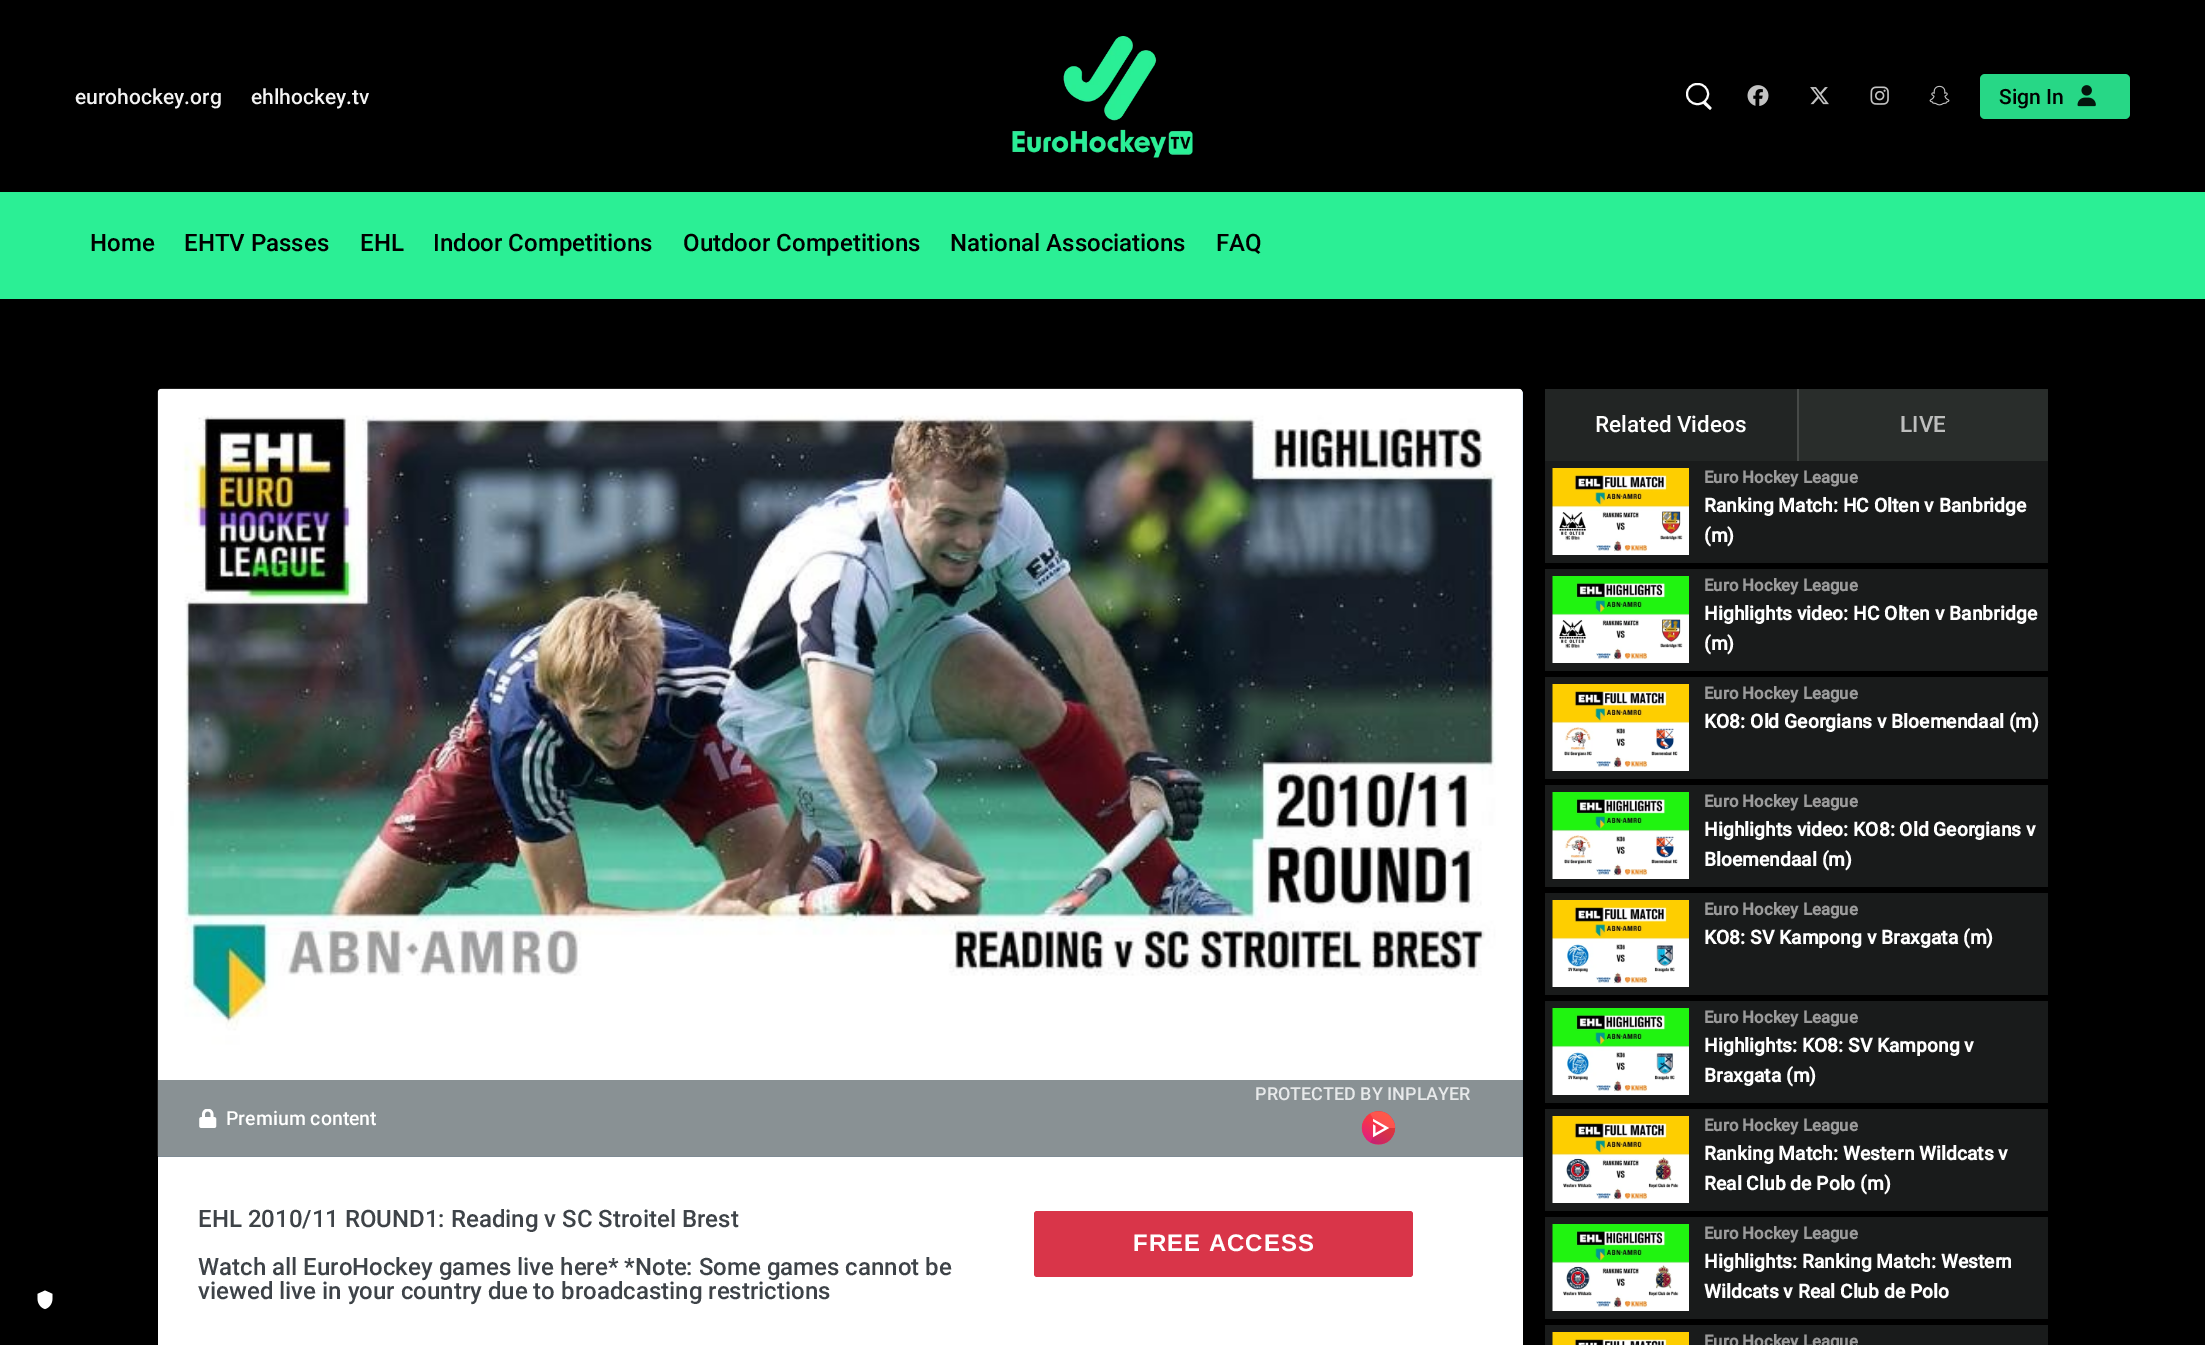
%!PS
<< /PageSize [2205 1345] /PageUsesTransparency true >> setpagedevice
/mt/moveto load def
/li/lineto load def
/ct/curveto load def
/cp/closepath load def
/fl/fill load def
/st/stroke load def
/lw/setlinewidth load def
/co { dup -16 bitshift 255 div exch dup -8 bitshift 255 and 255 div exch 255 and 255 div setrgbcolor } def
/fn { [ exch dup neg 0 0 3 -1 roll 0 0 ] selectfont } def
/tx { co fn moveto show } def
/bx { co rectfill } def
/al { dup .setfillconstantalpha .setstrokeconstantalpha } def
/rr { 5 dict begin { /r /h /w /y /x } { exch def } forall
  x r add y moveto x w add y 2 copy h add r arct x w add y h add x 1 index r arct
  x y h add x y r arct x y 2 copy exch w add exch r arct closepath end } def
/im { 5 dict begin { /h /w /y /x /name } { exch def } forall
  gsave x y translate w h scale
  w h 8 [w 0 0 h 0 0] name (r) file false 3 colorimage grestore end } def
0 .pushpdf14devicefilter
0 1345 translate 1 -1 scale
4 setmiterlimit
0 0 2205 1345 16#000000 bx
(media/1.raw) 37 1290 16 20 im
0 192 2205 107 16#2BEF95 bx
(media/2.raw) 1012 36 181 122 im
16#FCFCFC co
2 lw
1687 84 21 20 10 rr st
1705 101 mt 1711 107 li 1711.5 107.5 1711.5 108.5 1711 109 ct 1710.5 110 1709.5 110 1709 109 ct 1703 103.5 li cp fl
(media/3.raw) 1747 85 22 21 im
(media/4.raw) 1810 87 19 18 im
(media/5.raw) 1870 86 19 19 im
(media/6.raw) 1929 85 21 21 im
16#27D786 co
1980 74 150 45 5 rr fl
(media/7.raw) 2077 85 19 22 im
16#FFFFFF co
158 389 1365 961 5 rr fl
16#DDEEFF co
163 389 mt 1518 389 li 1521 389 1523 391 1523 394 ct 1523 1157 li 158 1157 li 158 394 li 158 391 160 389 163 389 ct cp fl
(media/8.raw) 157 388 1366 769 im
0.6 al
158 1080 1365 77 16#3A474C bx
1 al
(media/9.raw) 1361 1111 35 34 im
(media/10.raw) 199 1109 18 19 im
16#D93549 co
1034 1211 379 66 3 rr fl
1545 389 252 72 16#222524 bx
1799 389 249 72 16#292D2B bx
1797 389 2 72 16#474A48 bx
1545 461 503 102 16#191B1B bx
(media/11.raw) 1552 468 137 87 im
1545 569 503 102 16#191B1B bx
(media/12.raw) 1552 576 137 87 im
1545 677 503 102 16#191B1B bx
(media/13.raw) 1552 684 137 87 im
1545 785 503 102 16#191B1B bx
(media/14.raw) 1552 792 137 87 im
1545 893 503 102 16#191B1B bx
(media/15.raw) 1552 900 137 87 im
1545 1001 503 102 16#191B1B bx
(media/16.raw) 1552 1008 137 87 im
1545 1109 503 102 16#191B1B bx
(media/17.raw) 1552 1116 137 87 im
1545 1217 503 102 16#191B1B bx
(media/18.raw) 1552 1224 137 87 im
1545 1325 503 20 16#191B1B bx
(media/19.raw) 1552 1332 137 13 im
(eurohockey.org) 75 104 /Roboto-Medium 21 16#F3F3F3 tx
(ehlhockey.tv) 251 104 /Roboto-Medium 21 16#F3F3F3 tx
(Sign In) 1999 104 /Roboto-Medium 21 16#000000 tx
(Home) 90 251 /Roboto-Medium 24 16#000000 tx
(EHTV Passes) 184 251 /Roboto-Medium 24 16#000000 tx
(EHL) 360 251 /Roboto-Medium 24 16#000000 tx
(Indoor Competitions) 433 251 /Roboto-Medium 24 16#000000 tx
(Outdoor Competitions) 683 251 /Roboto-Medium 24 16#000000 tx
(National Associations) 950 251 /Roboto-Medium 24 16#000000 tx
(FAQ) 1216 251 /Roboto-Medium 24 16#000000 tx
(PROTECTED BY INPLAYER) 1255 1100 /Roboto-Medium 18 16#E7E9EA tx
(Premium content) 226 1125 /Roboto-Medium 19.5 16#FFFFFF tx
(EHL 2010/11 ROUND1: Reading v SC Stroitel Brest) 198 1227 /Roboto-Medium 24 16#3E4348 tx
(Watch all EuroHockey games live here* *Note: Some games cannot be) 198 1275 /Roboto-Medium 24 16#3E4348 tx
(viewed live in your country due to broadcasting restrictions) 198 1299 /Roboto-Medium 24 16#3E4348 tx
/LiberationSans-Bold 24 fn
16#FFFFFF co
1133 1251 mt 1 0 (FREE ACCESS) ashow
(Related Videos) 1595 432 /Roboto-Medium 22.5 16#FFFFFF tx
(LIVE) 1900 432 /Roboto-Medium 22.5 16#BDBEBD tx
(Euro Hockey League) 1704 483 /Roboto-Bold 16.75 16#9B9B9B tx
(Ranking Match: HC Olten v Banbridge) 1704 512 /Roboto-Bold 19.25 16#FFFFFF tx
(\(m\)) 1704 542 /Roboto-Bold 19.25 16#FFFFFF tx
(Euro Hockey League) 1704 591 /Roboto-Bold 16.75 16#9B9B9B tx
(Highlights video: HC Olten v Banbridge) 1704 620 /Roboto-Bold 19.25 16#FFFFFF tx
(\(m\)) 1704 650 /Roboto-Bold 19.25 16#FFFFFF tx
(Euro Hockey League) 1704 699 /Roboto-Bold 16.75 16#9B9B9B tx
(KO8: Old Georgians v Bloemendaal \(m\)) 1704 728 /Roboto-Bold 19.25 16#FFFFFF tx
(Euro Hockey League) 1704 807 /Roboto-Bold 16.75 16#9B9B9B tx
(Highlights video: KO8: Old Georgians v) 1704 836 /Roboto-Bold 19.25 16#FFFFFF tx
(Bloemendaal \(m\)) 1704 866 /Roboto-Bold 19.25 16#FFFFFF tx
(Euro Hockey League) 1704 915 /Roboto-Bold 16.75 16#9B9B9B tx
(KO8: SV Kampong v Braxgata \(m\)) 1704 944 /Roboto-Bold 19.25 16#FFFFFF tx
(Euro Hockey League) 1704 1023 /Roboto-Bold 16.75 16#9B9B9B tx
(Highlights: KO8: SV Kampong v) 1704 1052 /Roboto-Bold 19.25 16#FFFFFF tx
(Braxgata \(m\)) 1704 1082 /Roboto-Bold 19.25 16#FFFFFF tx
(Euro Hockey League) 1704 1131 /Roboto-Bold 16.75 16#9B9B9B tx
(Ranking Match: Western Wildcats v) 1704 1160 /Roboto-Bold 19.25 16#FFFFFF tx
(Real Club de Polo \(m\)) 1704 1190 /Roboto-Bold 19.25 16#FFFFFF tx
(Euro Hockey League) 1704 1239 /Roboto-Bold 16.75 16#9B9B9B tx
(Highlights: Ranking Match: Western) 1704 1268 /Roboto-Bold 19.25 16#FFFFFF tx
(Wildcats v Real Club de Polo) 1704 1298 /Roboto-Bold 19.25 16#FFFFFF tx
(Euro Hockey League) 1704 1347 /Roboto-Bold 16.75 16#9B9B9B tx
.poppdf14devicefilter showpage
